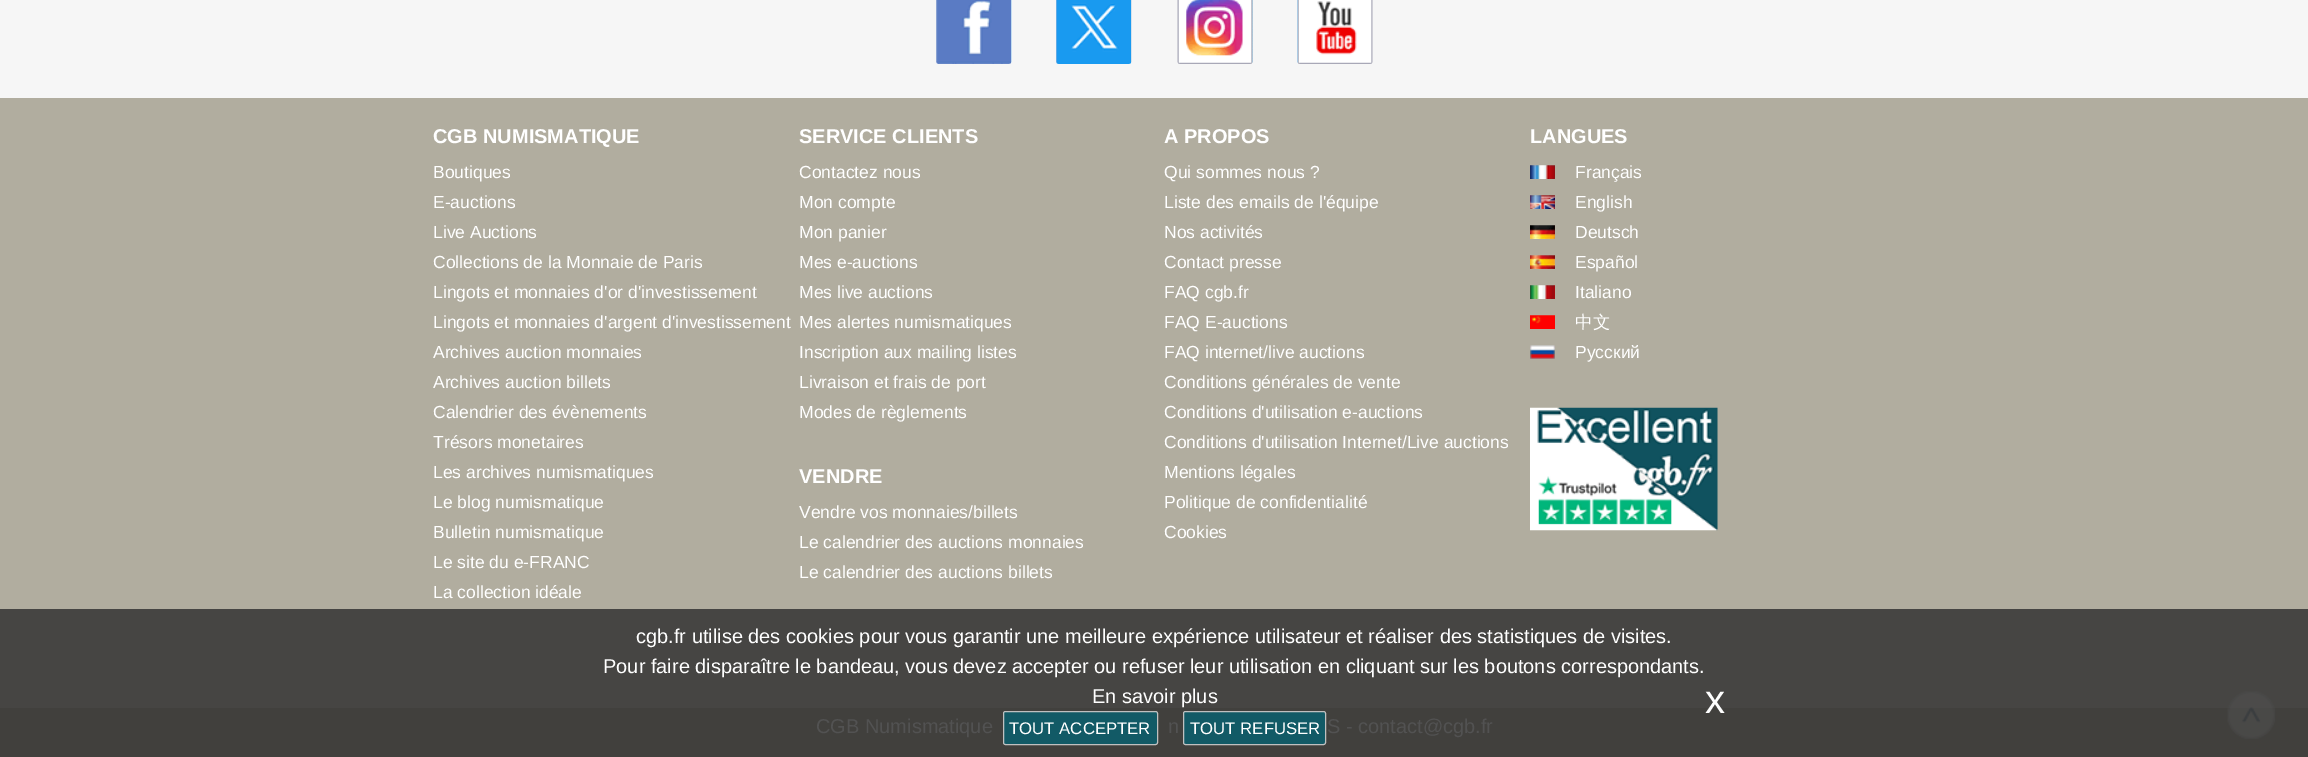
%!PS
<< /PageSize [2308 757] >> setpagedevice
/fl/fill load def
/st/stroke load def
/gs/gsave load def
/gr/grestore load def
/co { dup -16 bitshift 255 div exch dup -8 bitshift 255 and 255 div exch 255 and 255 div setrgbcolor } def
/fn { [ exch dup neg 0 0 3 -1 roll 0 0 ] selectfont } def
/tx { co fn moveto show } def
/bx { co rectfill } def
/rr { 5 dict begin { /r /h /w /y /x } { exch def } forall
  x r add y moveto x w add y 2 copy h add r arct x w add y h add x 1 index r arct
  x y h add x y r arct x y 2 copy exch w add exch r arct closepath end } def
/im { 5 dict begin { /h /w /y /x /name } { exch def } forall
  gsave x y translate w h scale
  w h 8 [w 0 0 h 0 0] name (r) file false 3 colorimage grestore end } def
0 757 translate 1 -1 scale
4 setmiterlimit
0 0 2308 757 16#B1AD9F bx
0 609 2308 99 16#464543 bx
0 0 2308 98 16#F6F6F6 bx
(media/1.raw) 936 0 76 64 im
(media/2.raw) 1056 0 76 64 im
(media/3.raw) 1177 0 76 64 im
(media/4.raw) 1297 0 76 64 im
(media/5.raw) 1530 165 25 14 im
(media/6.raw) 1530 195 25 14 im
(media/7.raw) 1530 225 25 14 im
(media/8.raw) 1530 255 25 14 im
(media/9.raw) 1530 285 25 14 im
(media/10.raw) 1530 315 25 14 im
(media/11.raw) 1530 345 25 14 im
(media/12.raw) 1530 407 188 124 im
0 708 2308 49 16#41403D bx
16#125A66 co
1003.5 711.5 154 33 2 rr gs fl gr
16#C0C0C0 co
st
16#125A66 co
1183.5 711.5 142 33 2 rr gs fl gr
16#C0C0C0 co
st
(media/13.raw) 2227 691 49 48 im
(CGB NUMISMATIQUE) 433 143 /LiberationSans-Bold 20 16#FFFFFF tx
(Boutiques) 433 178 /LiberationSans-Regular 17.5 16#FFFFFF tx
(E-auctions) 433 208 /LiberationSans-Regular 17.5 16#FFFFFF tx
(Live Auctions) 433 238 /LiberationSans-Regular 17.5 16#FFFFFF tx
(Collections de la Monnaie de Paris) 433 268 /LiberationSans-Regular 17.5 16#FFFFFF tx
(Lingots et monnaies d'or d'investissement) 433 298 /LiberationSans-Regular 17.5 16#FFFFFF tx
(Lingots et monnaies d'argent d'investissement) 433 328 /LiberationSans-Regular 17.5 16#FFFFFF tx
(Archives auction monnaies) 433 358 /LiberationSans-Regular 17.5 16#FFFFFF tx
(Archives auction billets) 433 388 /LiberationSans-Regular 17.5 16#FFFFFF tx
(Calendrier des évènements) 433 418 /LiberationSans-Regular 17.5 16#FFFFFF tx
(Trésors monetaires) 433 448 /LiberationSans-Regular 17.5 16#FFFFFF tx
(Les archives numismatiques) 433 478 /LiberationSans-Regular 17.5 16#FFFFFF tx
(Le blog numismatique) 433 508 /LiberationSans-Regular 17.5 16#FFFFFF tx
(Bulletin numismatique) 433 538 /LiberationSans-Regular 17.5 16#FFFFFF tx
(Le site du e-FRANC) 433 568 /LiberationSans-Regular 17.5 16#FFFFFF tx
(La collection idéale) 433 598 /LiberationSans-Regular 17.5 16#FFFFFF tx
(SERVICE CLIENTS) 799 143 /LiberationSans-Bold 20 16#FFFFFF tx
(Contactez nous) 799 178 /LiberationSans-Regular 17.5 16#FFFFFF tx
(Mon compte) 799 208 /LiberationSans-Regular 17.5 16#FFFFFF tx
(Mon panier) 799 238 /LiberationSans-Regular 17.5 16#FFFFFF tx
(Mes e-auctions) 799 268 /LiberationSans-Regular 17.5 16#FFFFFF tx
(Mes live auctions) 799 298 /LiberationSans-Regular 17.5 16#FFFFFF tx
(Mes alertes numismatiques) 799 328 /LiberationSans-Regular 17.5 16#FFFFFF tx
(Inscription aux mailing listes) 799 358 /LiberationSans-Regular 17.5 16#FFFFFF tx
(Livraison et frais de port) 799 388 /LiberationSans-Regular 17.5 16#FFFFFF tx
(Modes de règlements) 799 418 /LiberationSans-Regular 17.5 16#FFFFFF tx
(VENDRE) 799 483 /LiberationSans-Bold 20 16#FFFFFF tx
(Vendre vos monnaies/billets) 799 518 /LiberationSans-Regular 17.5 16#FFFFFF tx
(Le calendrier des auctions monnaies) 799 548 /LiberationSans-Regular 17.5 16#FFFFFF tx
(Le calendrier des auctions billets) 799 578 /LiberationSans-Regular 17.5 16#FFFFFF tx
(A PROPOS) 1164 143 /LiberationSans-Bold 20 16#FFFFFF tx
(Qui sommes nous ?) 1164 178 /LiberationSans-Regular 17.5 16#FFFFFF tx
(Liste des emails de l'équipe) 1164 208 /LiberationSans-Regular 17.5 16#FFFFFF tx
(Nos activités) 1164 238 /LiberationSans-Regular 17.5 16#FFFFFF tx
(Contact presse) 1164 268 /LiberationSans-Regular 17.5 16#FFFFFF tx
(FAQ cgb.fr) 1164 298 /LiberationSans-Regular 17.5 16#FFFFFF tx
(FAQ E-auctions) 1164 328 /LiberationSans-Regular 17.5 16#FFFFFF tx
(FAQ internet/live auctions) 1164 358 /LiberationSans-Regular 17.5 16#FFFFFF tx
(Conditions générales de vente) 1164 388 /LiberationSans-Regular 17.5 16#FFFFFF tx
(Conditions d'utilisation e-auctions) 1164 418 /LiberationSans-Regular 17.5 16#FFFFFF tx
(Conditions d'utilisation Internet/Live auctions) 1164 448 /LiberationSans-Regular 17.5 16#FFFFFF tx
(Mentions légales) 1164 478 /LiberationSans-Regular 17.5 16#FFFFFF tx
(Politique de confidentialité) 1164 508 /LiberationSans-Regular 17.5 16#FFFFFF tx
(Cookies) 1164 538 /LiberationSans-Regular 17.5 16#FFFFFF tx
(LANGUES) 1530 143 /LiberationSans-Bold 20 16#FFFFFF tx
(Français) 1575 178 /LiberationSans-Regular 17.5 16#FFFFFF tx
(English) 1575 208 /LiberationSans-Regular 17.5 16#FFFFFF tx
(Deutsch) 1575 238 /LiberationSans-Regular 17.5 16#FFFFFF tx
(Español) 1575 268 /LiberationSans-Regular 17.5 16#FFFFFF tx
(Italiano) 1575 298 /LiberationSans-Regular 17.5 16#FFFFFF tx
(中文) 1575 328 /WenQuanYiZenHei-Medium 17.5 16#FFFFFF tx
(Русский) 1575 358 /LiberationSans-Regular 17.5 16#FFFFFF tx
(CGB Numismatique) 816 733 /LiberationSans-Regular 20 16#525252 tx
(n) 1168 733 /LiberationSans-Regular 20 16#525252 tx
(S - contact@cgb.fr) 1327 733 /LiberationSans-Regular 20 16#525252 tx
(cgb.fr utilise des cookies pour vous garantir une meilleure expérience utilisateur et réaliser des statistiques de visites.) 636 643 /LiberationSans-Regular 20 16#FFFFFF tx
(Pour faire disparaître le bandeau, vous devez accepter ou refuser leur utilisation en cliquant sur les boutons correspondants.) 603 673 /LiberationSans-Regular 20 16#FFFFFF tx
(En savoir plus) 1092 703 /LiberationSans-Regular 20 16#FFFFFF tx
(x) 1705 713 /LiberationSans-Regular 40 16#FFFFFF tx
(TOUT ACCEPTER) 1009 734 /LiberationSans-Regular 16.75 16#FFFFFF tx
(TOUT REFUSER) 1190 734 /LiberationSans-Regular 16.75 16#FFFFFF tx
showpage
